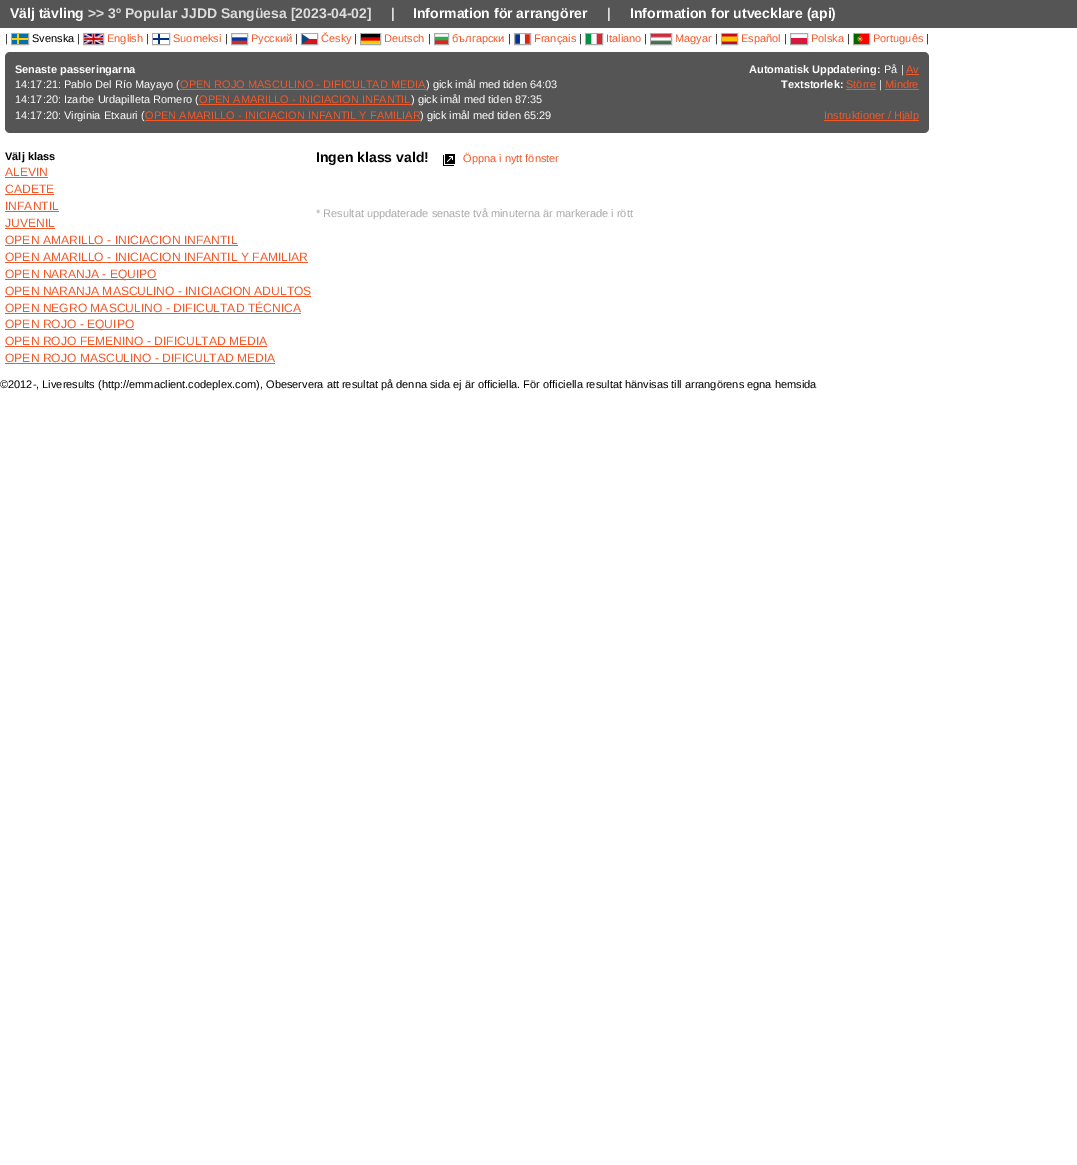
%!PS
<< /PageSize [1077 1165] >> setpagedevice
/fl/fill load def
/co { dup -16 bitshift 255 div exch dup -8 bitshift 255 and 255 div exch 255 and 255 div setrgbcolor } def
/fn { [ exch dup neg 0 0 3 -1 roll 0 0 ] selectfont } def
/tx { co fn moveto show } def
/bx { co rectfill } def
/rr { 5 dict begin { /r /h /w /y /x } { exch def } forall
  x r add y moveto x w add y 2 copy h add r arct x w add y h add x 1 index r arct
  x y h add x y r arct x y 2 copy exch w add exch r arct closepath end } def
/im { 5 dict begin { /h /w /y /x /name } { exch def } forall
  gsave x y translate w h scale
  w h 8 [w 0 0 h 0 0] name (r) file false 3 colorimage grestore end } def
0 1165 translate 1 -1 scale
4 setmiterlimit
0 0 1077 1165 16#FFFFFF bx
0 0 1077 28 16#555556 bx
16#AAAAAA co
11.5 33.5 17 11 rectstroke
231.5 33.5 16 11 rectstroke
301.5 33.5 16 11 rectstroke
434.5 33.5 14 11 rectstroke
(media/1.raw) 12 34 16 10 im
83.5 33.5 20 11 rectstroke
(media/2.raw) 84 34 19 10 im
152.5 33.5 17 11 rectstroke
(media/3.raw) 153 34 16 10 im
(media/4.raw) 232 37 15 7 im
(media/5.raw) 302 34 15 10 im
360.5 33.5 20 11 rectstroke
(media/6.raw) 361 34 19 10 im
(media/7.raw) 435 36 13 8 im
514.5 33.5 16 11 rectstroke
(media/8.raw) 515 34 15 10 im
585.5 33.5 17 11 rectstroke
(media/9.raw) 586 34 16 10 im
650.5 33.5 21 11 rectstroke
(media/10.raw) 651 34 20 10 im
721.5 33.5 16 11 rectstroke
(media/11.raw) 722 34 15 10 im
790.5 33.5 17 11 rectstroke
791 38 16 6 16#DC153D bx
16#AAAAAA co
853.5 33.5 16 11 rectstroke
(media/12.raw) 854 34 15 10 im
16#555556 co
5 52 924 81 5 rr fl
180 89 246 1 16#F1592A bx
199 104 212 1 16#F1592A bx
145 120 275 1 16#F1592A bx
906 74 13 1 16#F1592A bx
846 89 30 1 16#F1592A bx
885 89 34 1 16#F1592A bx
824 120 95 1 16#F1592A bx
5 177 43 1 16#F1592A bx
5 194 49 1 16#F1592A bx
5 211 54 1 16#F1592A bx
5 228 50 1 16#F1592A bx
5 245 233 1 16#F1592A bx
5 262 303 1 16#F1592A bx
5 279 152 1 16#F1592A bx
5 296 306 1 16#F1592A bx
5 313 296 1 16#F1592A bx
5 329 129 1 16#F1592A bx
5 346 262 1 16#F1592A bx
5 363 270 1 16#F1592A bx
(media/13.raw) 443 154 12 12 im
(Välj tävling) 10 18 /LiberationSans-Bold 14 16#FFFFFF tx
(>> 3º Popular JJDD Sangüesa [2023-04-02]) 88 18 /LiberationSans-Bold 14 16#DDDDDD tx
(|) 391 18 /LiberationSans-Bold 14 16#DDDDDD tx
(Information för arrangörer) 413 18 /LiberationSans-Bold 14 16#FFFFFF tx
(|) 607 18 /LiberationSans-Bold 14 16#DDDDDD tx
(Information for utvecklare \(api\)) 630 18 /LiberationSans-Bold 14 16#FFFFFF tx
(|) 5 42 /LiberationSans-Regular 11 16#000000 tx
(Русский) 251 42 /LiberationSans-Regular 11 16#F1592A tx
(Česky) 321 42 /LiberationSans-Regular 11 16#F1592A tx
(български) 452 42 /LiberationSans-Regular 11 16#F1592A tx
(Svenska |) 32 42 /LiberationSans-Regular 11 16#000000 tx
(English) 107 42 /LiberationSans-Regular 11 16#F1592A tx
(|) 146 42 /LiberationSans-Regular 11 16#000000 tx
(Suomeksi) 173 42 /LiberationSans-Regular 11 16#F1592A tx
(|) 225 42 /LiberationSans-Regular 11 16#000000 tx
(|) 295 42 /LiberationSans-Regular 11 16#000000 tx
(|) 354 42 /LiberationSans-Regular 11 16#000000 tx
(Deutsch) 384 42 /LiberationSans-Regular 11 16#F1592A tx
(|) 428 42 /LiberationSans-Regular 11 16#000000 tx
(|) 508 42 /LiberationSans-Regular 11 16#000000 tx
(Français) 534 42 /LiberationSans-Regular 11 16#F1592A tx
(|) 579 42 /LiberationSans-Regular 11 16#000000 tx
(Italiano) 606 42 /LiberationSans-Regular 11 16#F1592A tx
(|) 644 42 /LiberationSans-Regular 11 16#000000 tx
(Magyar) 675 42 /LiberationSans-Regular 11 16#F1592A tx
(|) 715 42 /LiberationSans-Regular 11 16#000000 tx
(Español) 741 42 /LiberationSans-Regular 11 16#F1592A tx
(|) 784 42 /LiberationSans-Regular 11 16#000000 tx
(Polska) 811 42 /LiberationSans-Regular 11 16#F1592A tx
(|) 847 42 /LiberationSans-Regular 11 16#000000 tx
(Português) 873 42 /LiberationSans-Regular 11 16#F1592A tx
(|) 926 42 /LiberationSans-Regular 11 16#000000 tx
(Senaste passeringarna) 15 73 /LiberationSans-Bold 11 16#FFFFFF tx
(14:17:21: Pablo Del Río Mayayo \() 15 88 /LiberationSans-Regular 11 16#FFFFFF tx
(OPEN ROJO MASCULINO - DIFICULTAD MEDIA) 180 88 /LiberationSans-Regular 11 16#F1592A tx
(\) gick imål med tiden 64:03) 426 88 /LiberationSans-Regular 11 16#FFFFFF tx
(14:17:20: Izarbe Urdapilleta Romero \() 15 103 /LiberationSans-Regular 11 16#FFFFFF tx
(OPEN AMARILLO - INICIACION INFANTIL) 199 103 /LiberationSans-Regular 11 16#F1592A tx
(\) gick imål med tiden 87:35) 411 103 /LiberationSans-Regular 11 16#FFFFFF tx
(14:17:20: Virginia Etxauri \() 15 119 /LiberationSans-Regular 11 16#FFFFFF tx
(OPEN AMARILLO - INICIACION INFANTIL Y FAMILIAR) 145 119 /LiberationSans-Regular 11 16#F1592A tx
(\) gick imål med tiden 65:29) 420 119 /LiberationSans-Regular 11 16#FFFFFF tx
(Automatisk Uppdatering:) 749 73 /LiberationSans-Bold 11 16#FFFFFF tx
(På |) 884 73 /LiberationSans-Regular 11 16#FFFFFF tx
(Av) 906 73 /LiberationSans-Regular 11 16#F1592A tx
(Textstorlek:) 781 88 /LiberationSans-Bold 11 16#FFFFFF tx
(Större) 846 88 /LiberationSans-Regular 11 16#F1592A tx
(|) 879 88 /LiberationSans-Regular 11 16#FFFFFF tx
(Mindre) 885 88 /LiberationSans-Regular 11 16#F1592A tx
(Instruktioner / Hjälp) 824 119 /LiberationSans-Regular 11 16#F1592A tx
(Välj klass) 5 160 /LiberationSans-Bold 11 16#000000 tx
(ALEVIN) 5 176 /LiberationSans-Regular 12.1 16#F1592A tx
(CADETE) 5 193 /LiberationSans-Regular 12.1 16#F1592A tx
(INFANTIL) 5 210 /LiberationSans-Regular 12.1 16#F1592A tx
(JUVENIL) 5 227 /LiberationSans-Regular 12.1 16#F1592A tx
(OPEN AMARILLO - INICIACION INFANTIL) 5 244 /LiberationSans-Regular 12.1 16#F1592A tx
(OPEN AMARILLO - INICIACION INFANTIL Y FAMILIAR) 5 261 /LiberationSans-Regular 12.1 16#F1592A tx
(OPEN NARANJA - EQUIPO) 5 278 /LiberationSans-Regular 12.1 16#F1592A tx
(OPEN NARANJA MASCULINO - INICIACION ADULTOS) 5 295 /LiberationSans-Regular 12.1 16#F1592A tx
(OPEN NEGRO MASCULINO - DIFICULTAD TÉCNICA) 5 312 /LiberationSans-Regular 12.1 16#F1592A tx
(OPEN ROJO - EQUIPO) 5 328 /LiberationSans-Regular 12.1 16#F1592A tx
(OPEN ROJO FEMENINO - DIFICULTAD MEDIA) 5 345 /LiberationSans-Regular 12.1 16#F1592A tx
(OPEN ROJO MASCULINO - DIFICULTAD MEDIA) 5 362 /LiberationSans-Regular 12.1 16#F1592A tx
(Ingen klass vald!) 316 162 /LiberationSans-Bold 14 16#000000 tx
(Öppna i nytt fönster) 463 162 /LiberationSans-Regular 11 16#F1592A tx
(* Resultat uppdaterade senaste två minuterna är markerade i rött) 316 217 /LiberationSans-Regular 11 16#AAAAAA tx
(©2012-, Liveresults \(http://emmaclient.codeplex.com\), Obeservera att resultat på denna sida ej är officiella. För officiella resultat hänvisas till arrangörens egna hemsida) 0 388 /LiberationSans-Regular 11 16#000000 tx
showpage
